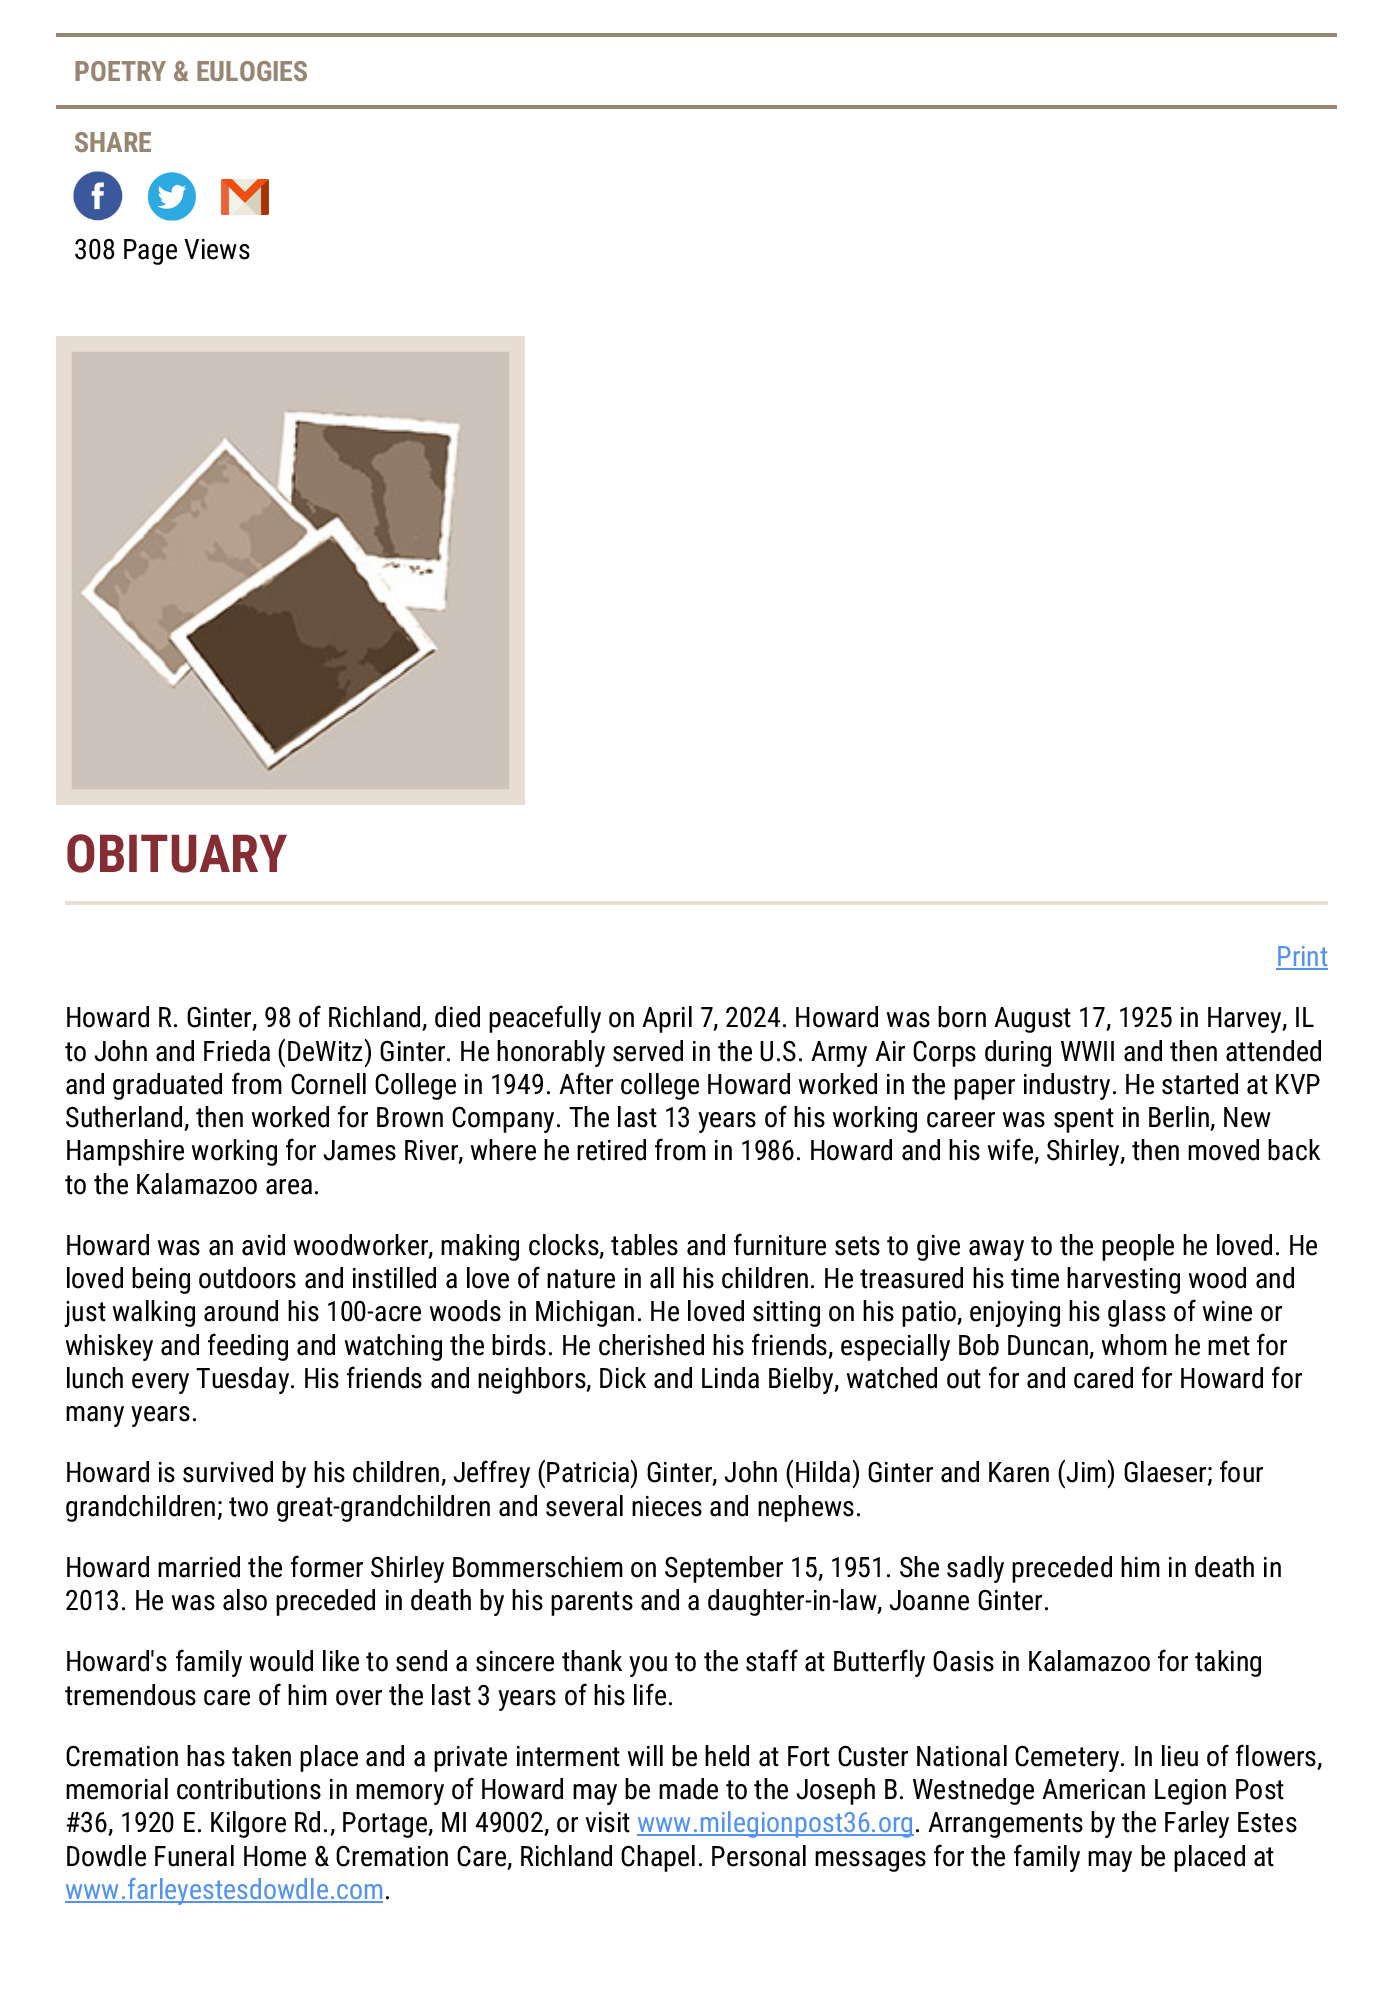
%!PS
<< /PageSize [1393 1991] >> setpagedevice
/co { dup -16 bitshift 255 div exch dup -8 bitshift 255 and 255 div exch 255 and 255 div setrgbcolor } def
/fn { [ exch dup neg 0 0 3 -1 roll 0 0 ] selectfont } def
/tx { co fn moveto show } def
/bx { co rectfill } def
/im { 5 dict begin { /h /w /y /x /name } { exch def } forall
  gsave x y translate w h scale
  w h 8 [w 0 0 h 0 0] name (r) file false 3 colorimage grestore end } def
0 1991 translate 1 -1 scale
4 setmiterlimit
0 0 1393 1991 16#FFFFFF bx
56 33 1281 4 16#988673 bx
56 105 1281 4 16#988673 bx
(media/1.raw) 73 171 50 50 im
(media/2.raw) 147 172 49 49 im
(media/3.raw) 221 179 48 36 im
56 336 469 469 16#E8DDD2 bx
(media/4.raw) 71 351 439 439 im
65 901 1263 4 16#E8DDD2 bx
1276 968 52 2 16#5292F2 bx
637 1834 277 2 16#5292F2 bx
65 1901 318 2 16#5292F2 bx
(POETRY & EULOGIES) 74 81 /RobotoCondensed-Bold 28 16#988673 tx
(SHARE) 74 152 /RobotoCondensed-Bold 28 16#988673 tx
(308 Page Views) 74 259 /RobotoCondensed-Regular 28 16#000000 tx
(OBITUARY) 65 872 /RobotoCondensed-Bold 52.5 16#862D33 tx
(Print) 1276 966 /RobotoCondensed-Regular 28 16#5292F2 tx
(Howard R. Ginter, 98 of Richland, died peacefully on April 7, 2024. Howard was born August 17, 1925 in Harvey, IL) 65 1027 /RobotoCondensed-Regular 28 16#000000 tx
(to John and Frieda \(DeWitz\) Ginter. He honorably served in the U.S. Army Air Corps during WWII and then attended) 65 1061 /RobotoCondensed-Regular 28 16#000000 tx
(and graduated from Cornell College in 1949. After college Howard worked in the paper industry. He started at KVP) 65 1094 /RobotoCondensed-Regular 28 16#000000 tx
(Sutherland, then worked for Brown Company. The last 13 years of his working career was spent in Berlin, New) 65 1127 /RobotoCondensed-Regular 28 16#000000 tx
(Hampshire working for James River, where he retired from in 1986. Howard and his wife, Shirley, then moved back) 65 1160 /RobotoCondensed-Regular 28 16#000000 tx
(to the Kalamazoo area.) 65 1194 /RobotoCondensed-Regular 28 16#000000 tx
(Howard was an avid woodworker, making clocks, tables and furniture sets to give away to the people he loved. He) 65 1255 /RobotoCondensed-Regular 28 16#000000 tx
(loved being outdoors and instilled a love of nature in all his children. He treasured his time harvesting wood and) 65 1288 /RobotoCondensed-Regular 28 16#000000 tx
(just walking around his 100-acre woods in Michigan. He loved sitting on his patio, enjoying his glass of wine or) 65 1321 /RobotoCondensed-Regular 28 16#000000 tx
(whiskey and feeding and watching the birds. He cherished his friends, especially Bob Duncan, whom he met for) 65 1355 /RobotoCondensed-Regular 28 16#000000 tx
(lunch every Tuesday. His friends and neighbors, Dick and Linda Bielby, watched out for and cared for Howard for) 65 1388 /RobotoCondensed-Regular 28 16#000000 tx
(many years.) 65 1421 /RobotoCondensed-Regular 28 16#000000 tx
(Howard is survived by his children, Jeffrey \(Patricia\) Ginter, John \(Hilda\) Ginter and Karen \(Jim\) Glaeser; four) 65 1482 /RobotoCondensed-Regular 28 16#000000 tx
(grandchildren; two great-grandchildren and several nieces and nephews.) 65 1516 /RobotoCondensed-Regular 28 16#000000 tx
(Howard married the former Shirley Bommerschiem on September 15, 1951. She sadly preceded him in death in) 65 1577 /RobotoCondensed-Regular 28 16#000000 tx
(2013. He was also preceded in death by his parents and a daughter-in-law, Joanne Ginter.) 65 1610 /RobotoCondensed-Regular 28 16#000000 tx
(Howard's family would like to send a sincere thank you to the staff at Butterfly Oasis in Kalamazoo for taking) 65 1671 /RobotoCondensed-Regular 28 16#000000 tx
(tremendous care of him over the last 3 years of his life.) 65 1705 /RobotoCondensed-Regular 28 16#000000 tx
(Cremation has taken place and a private interment will be held at Fort Custer National Cemetery. In lieu of flowers,) 65 1766 /RobotoCondensed-Regular 28 16#000000 tx
(memorial contributions in memory of Howard may be made to the Joseph B. Westnedge American Legion Post) 65 1799 /RobotoCondensed-Regular 28 16#000000 tx
(#36, 1920 E. Kilgore Rd., Portage, MI 49002, or visit) 65 1832 /RobotoCondensed-Regular 28 16#000000 tx
(www.milegionpost36.org) 637 1832 /RobotoCondensed-Regular 28 16#5292F2 tx
(. Arrangements by the Farley Estes) 914 1832 /RobotoCondensed-Regular 28 16#000000 tx
(Dowdle Funeral Home & Cremation Care, Richland Chapel. Personal messages for the family may be placed at) 65 1866 /RobotoCondensed-Regular 28 16#000000 tx
(www.farleyestesdowdle.com) 65 1899 /RobotoCondensed-Regular 28 16#5292F2 tx
(.) 384 1899 /RobotoCondensed-Regular 28 16#000000 tx
showpage
